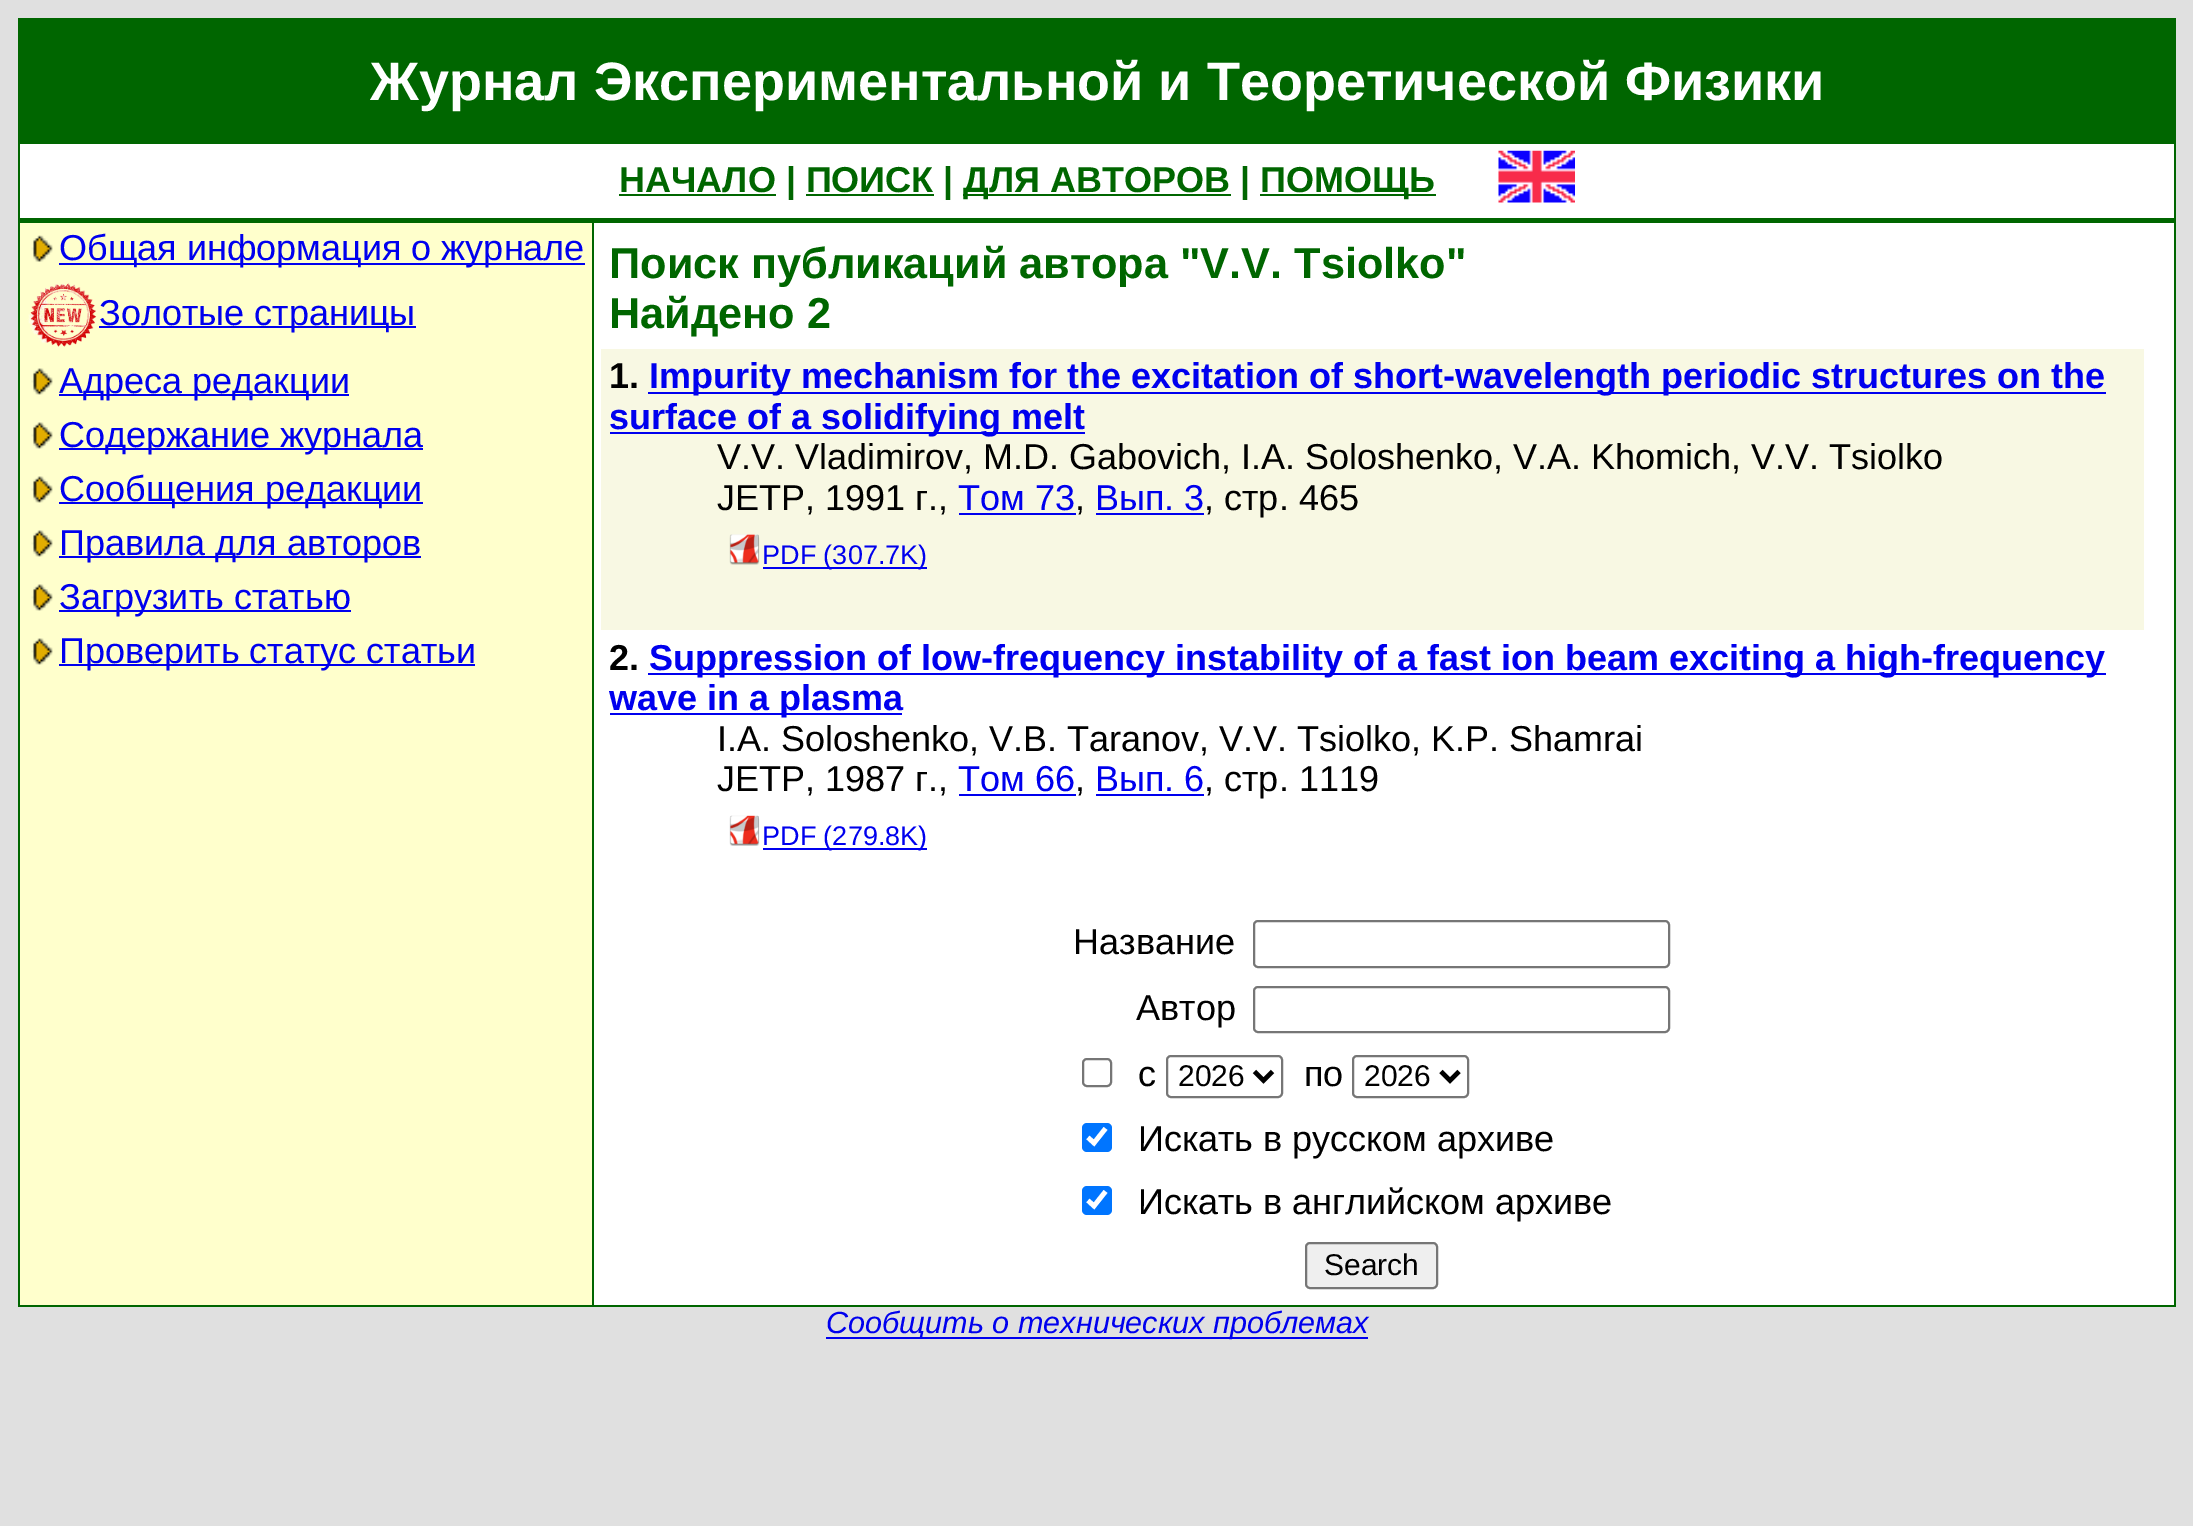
%!PS
<< /PageSize [2193 1526] >> setpagedevice
/mt/moveto load def
/li/lineto load def
/fl/fill load def
/st/stroke load def
/gs/gsave load def
/gr/grestore load def
/lw/setlinewidth load def
/co { dup -16 bitshift 255 div exch dup -8 bitshift 255 and 255 div exch 255 and 255 div setrgbcolor } def
/fn { [ exch dup neg 0 0 3 -1 roll 0 0 ] selectfont } def
/tx { co fn moveto show } def
/bx { co rectfill } def
/rr { 5 dict begin { /r /h /w /y /x } { exch def } forall
  x r add y moveto x w add y 2 copy h add r arct x w add y h add x 1 index r arct
  x y h add x y r arct x y 2 copy exch w add exch r arct closepath end } def
/im { 5 dict begin { /h /w /y /x /name } { exch def } forall
  gsave x y translate w h scale
  w h 8 [w 0 0 h 0 0] name (r) file false 3 colorimage grestore end } def
0 1526 translate 1 -1 scale
4 setmiterlimit
0 0 2193 1526 16#E0E0E0 bx
18 18 2158 1289 16#006600 bx
20 144 2154 1161 16#FFFFFF bx
619 194 157 2 16#006600 bx
963 194 268 2 16#006600 bx
1260 194 176 2 16#006600 bx
806 194 128 2 16#006600 bx
(media/1.raw) 1498 150 77 53 im
20 218 2154 5 16#006600 bx
20 223 572 1082 16#FFFFCC bx
(media/2.raw) 31 235 22 27 im
59 263 526 2 16#0000EE bx
(media/3.raw) 27 283 70 64 im
99 326 317 2 16#0000EE bx
(media/4.raw) 31 368 22 27 im
59 394 290 2 16#0000EE bx
(media/4.raw) 31 422 22 27 im
59 448 364 2 16#0000EE bx
(media/4.raw) 31 476 22 27 im
59 502 364 2 16#0000EE bx
(media/4.raw) 31 530 22 27 im
59 556 362 2 16#0000EE bx
(media/4.raw) 31 584 22 27 im
59 610 292 2 16#0000EE bx
(media/4.raw) 31 638 22 27 im
59 664 416 2 16#0000EE bx
592 223 2 1082 16#006600 bx
601 349 1543 281 16#F8F8E3 bx
648 392 1458 2 16#0000EE bx
610 432 475 2 16#0000EE bx
959 513 117 2 16#0000EE bx
1096 513 108 2 16#0000EE bx
(media/5.raw) 729 534 31 31 im
763 567 164 2 16#0000EE bx
648 673 1458 2 16#0000EE bx
610 713 292 2 16#0000EE bx
959 794 117 2 16#0000EE bx
1096 794 108 2 16#0000EE bx
(media/6.raw) 729 815 31 31 im
763 848 164 2 16#0000EE bx
16#767676 co
2 lw
1254 921 415 46 4 rr st
1254 987 415 45 4 rr st
1083 1059 28 27 4 rr st
1167 1056 115 41 4 rr st
16#000000 co
4.5 lw
1254.5 1071.5 mt 1263.5 1080.5 li 1272.5 1071.5 li st
16#767676 co
2 lw
1353 1056 115 41 4 rr st
16#000000 co
4.5 lw
1441 1071.5 mt 1450 1080.5 li 1459 1071.5 li st
16#0075FF co
1082 1123 30 29 5 rr fl
16#FFFFFF co
4.7 lw
1088 1137.5 mt 1094 1143 li 1105.5 1128.5 li st
16#0075FF co
1082 1186 30 29 5 rr fl
16#FFFFFF co
1088 1200.5 mt 1094 1206 li 1105.5 1191.5 li st
16#EFEFEF co
1306 1243 131 45 4 rr gs fl gr
16#767676 co
2 lw
st
826 1337 542 2 16#0000EE bx
(Журнал Экспериментальной и Теоретической Физики) 370 100 /LiberationSans-Bold 54 16#FFFFFF tx
(НАЧАЛО | ПОИСК |) 619 192 /LiberationSans-Bold 36 16#006600 tx
(ДЛЯ АВТОРОВ |) 963 192 /LiberationSans-Bold 36 16#006600 tx
(ПОМОЩЬ) 1260 192 /LiberationSans-Bold 36 16#006600 tx
(Общая информация о журнале) 59 260 /LiberationSans-Regular 36 16#0000EE tx
(Золотые страницы) 99 325 /LiberationSans-Regular 36 16#0000EE tx
(Адреса редакции) 59 393 /LiberationSans-Regular 36 16#0000EE tx
(Содержание журнала) 59 447 /LiberationSans-Regular 36 16#0000EE tx
(Сообщения редакции) 59 501 /LiberationSans-Regular 36 16#0000EE tx
(Правила для авторов) 59 555 /LiberationSans-Regular 36 16#0000EE tx
(Загрузить статью) 59 609 /LiberationSans-Regular 36 16#0000EE tx
(Проверить статус статьи) 59 663 /LiberationSans-Regular 36 16#0000EE tx
(Поиск публикаций автора "V.V. Tsiolko") 609 278 /LiberationSans-Bold 43.25 16#006600 tx
(Найдено 2) 609 328 /LiberationSans-Bold 43.25 16#006600 tx
(1.) 609 388 /LiberationSans-Bold 36 16#000000 tx
(Impurity mechanism for the excitation of short-wavelength periodic structures on the) 649 388 /LiberationSans-Bold 36 16#0000EE tx
(surface of a solidifying melt) 609 429 /LiberationSans-Bold 36 16#0000EE tx
(V.V. Vladimirov, M.D. Gabovich, I.A. Soloshenko, V.A. Khomich, V.V. Tsiolko) 717 469 /LiberationSans-Regular 36 16#000000 tx
(JETP, 1991 г.,) 717 510 /LiberationSans-Regular 36 16#000000 tx
(Том 73) 958 510 /LiberationSans-Regular 36 16#0000EE tx
(,) 1075 510 /LiberationSans-Regular 36 16#000000 tx
(Вып. 3) 1095 510 /LiberationSans-Regular 36 16#0000EE tx
(, стр. 465) 1204 510 /LiberationSans-Regular 36 16#000000 tx
(PDF \(307.7K\)) 762 564 /LiberationSans-Regular 27 16#0000EE tx
(2.) 609 670 /LiberationSans-Bold 36 16#000000 tx
(Suppression of low-frequency instability of a fast ion beam exciting a high-frequency) 649 670 /LiberationSans-Bold 36 16#0000EE tx
(wave in a plasma) 609 710 /LiberationSans-Bold 36 16#0000EE tx
(I.A. Soloshenko, V.B. Taranov, V.V. Tsiolko, K.P. Shamrai) 717 751 /LiberationSans-Regular 36 16#000000 tx
(JETP, 1987 г.,) 717 791 /LiberationSans-Regular 36 16#000000 tx
(Том 66) 958 791 /LiberationSans-Regular 36 16#0000EE tx
(,) 1075 791 /LiberationSans-Regular 36 16#000000 tx
(Вып. 6) 1095 791 /LiberationSans-Regular 36 16#0000EE tx
(, стр. 1119) 1204 791 /LiberationSans-Regular 36 16#000000 tx
(PDF \(279.8K\)) 762 845 /LiberationSans-Regular 27 16#0000EE tx
(Название) 1073 954 /LiberationSans-Regular 36 16#000000 tx
(Автор) 1136 1020 /LiberationSans-Regular 36 16#000000 tx
(с) 1138 1086 /LiberationSans-Regular 36 16#000000 tx
(2026) 1178 1086 /LiberationSans-Regular 30 16#000000 tx
(по) 1304 1086 /LiberationSans-Regular 36 16#000000 tx
(2026) 1364 1086 /LiberationSans-Regular 30 16#000000 tx
(Искать в русском архиве) 1138 1151 /LiberationSans-Regular 36 16#000000 tx
(Искать в английском архиве) 1138 1214 /LiberationSans-Regular 36 16#000000 tx
(Search) 1324 1275 /LiberationSans-Regular 30 16#000000 tx
(Сообщить о технических проблемах) 826 1333 /LiberationSans-Italic 30.6 16#0000EE tx
showpage
